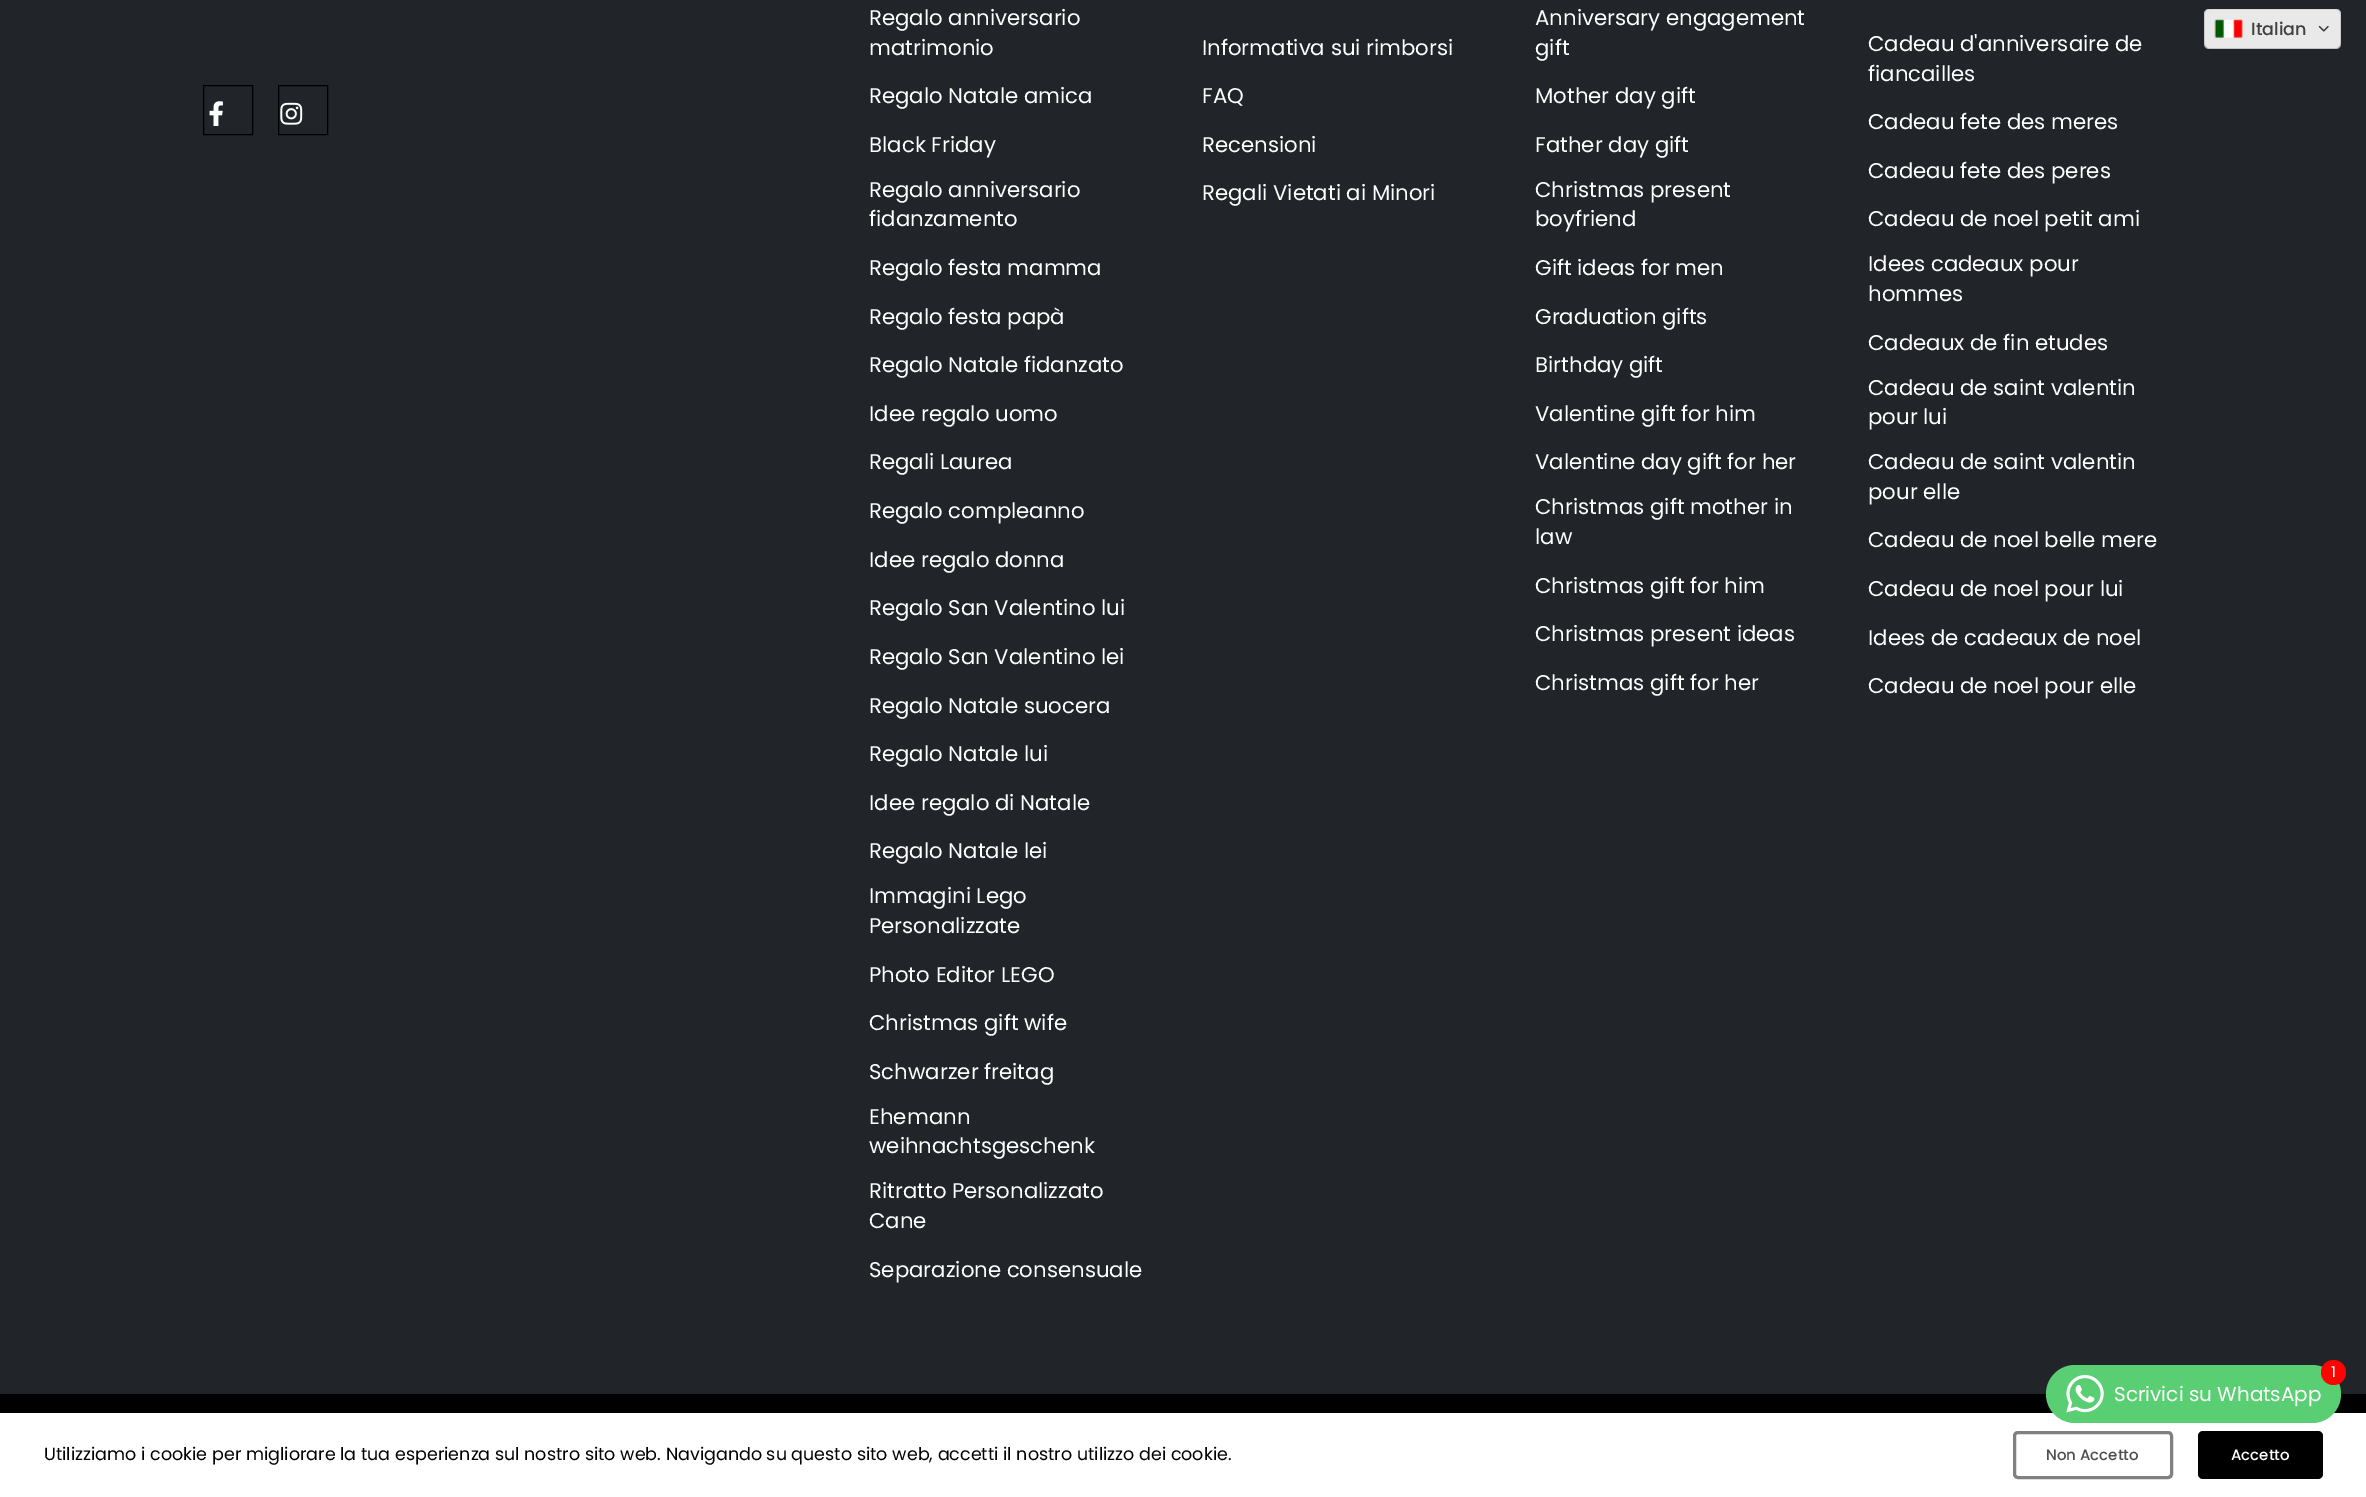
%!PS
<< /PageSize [2366 1497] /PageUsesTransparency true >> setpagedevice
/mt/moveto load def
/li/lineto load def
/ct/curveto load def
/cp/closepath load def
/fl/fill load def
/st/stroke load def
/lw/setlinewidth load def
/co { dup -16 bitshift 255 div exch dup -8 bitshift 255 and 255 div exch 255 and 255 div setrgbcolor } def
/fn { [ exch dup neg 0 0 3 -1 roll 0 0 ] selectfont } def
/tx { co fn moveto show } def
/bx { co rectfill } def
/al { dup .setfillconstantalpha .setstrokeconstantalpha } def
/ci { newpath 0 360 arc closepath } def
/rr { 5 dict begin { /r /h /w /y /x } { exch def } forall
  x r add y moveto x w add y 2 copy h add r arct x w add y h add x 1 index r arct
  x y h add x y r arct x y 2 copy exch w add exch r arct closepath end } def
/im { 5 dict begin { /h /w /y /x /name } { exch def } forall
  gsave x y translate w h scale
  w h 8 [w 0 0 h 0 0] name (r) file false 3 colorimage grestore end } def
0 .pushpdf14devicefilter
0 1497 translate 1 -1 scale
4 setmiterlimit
0 0 2366 1497 16#000000 bx
0 0 2366 1394 16#212529 bx
16#000000 co
203.5 85.5 49 49 rectstroke
(media/1.raw) 209 101 14 25 im
278.5 85.5 49 49 rectstroke
(media/2.raw) 280 102 23 23 im
16#E9E9EA co
2204 9 137 40 5 rr fl
0.5 al
16#CCCCCC co
2209 10 mt 2336 10 li 2339 10 2341 12 2341 15 ct 2341 14 li 2341 11 2339 9 2336 9 ct 2209 9 li 2206 9 2204 11 2204 14 ct 2204 15 li 2204 12 2206 10 2209 10 ct cp fl
0.17 al
16#000000 co
2204 42 mt 2204 44 li 2204 47 2206 49 2209 49 ct 2336 49 li 2339 49 2341 47 2341 44 ct 2341 42 li 2341 45 2339 48 2336 48 ct 2209 48 li 2206 48 2204 45 2204 42 ct cp fl
0.13 al
2335 49 mt 2342 49 2341 44 2341 39 ct 2341 19 li 2341 14 2342 9 2335 9 ct 2338 9 2340 11 2340 14 ct 2340 44 li 2340 47 2338 49 2335 49 ct cp fl
2209 9 mt 2206 9 2204 11 2204 14 ct 2204 44 li 2204 47 2206 49 2209 49 ct 2210 49 li 2207 49 2205 47 2205 44 ct 2205 14 li 2205 11 2207 9 2210 9 ct cp fl
1 al
16#E5E6E8 co
2214.5 19.5 29 19 2 rr st
(media/3.raw) 2214 19 29 19 im
(media/4.raw) 2318 25 11 7 im
0 1413 2366 84 16#FFFFFF bx
16#59CE72 co
2046 1365 295 58 29 rr fl
16#FF0303 co
2333.5 1372.5 12.5 ci fl
(media/5.raw) 2066 1375 38 38 im
16#808080 co
3 lw
2014.5 1432.5 157 45 3.5 rr st
16#000000 co
2198 1431 125 48 5 rr fl
(Regalo anniversario) 869 25 /Poppins-Regular 21.25 16#FFFFFF tx
(matrimonio) 869 55 /Poppins-Regular 21.25 16#FFFFFF tx
(Regalo Natale amica) 869 103 /Poppins-Regular 21.25 16#FFFFFF tx
(Black Friday) 869 152 /Poppins-Regular 21.25 16#FFFFFF tx
(Regalo anniversario) 869 197 /Poppins-Regular 21.25 16#FFFFFF tx
(fidanzamento) 869 226 /Poppins-Regular 21.25 16#FFFFFF tx
(Regalo festa mamma) 869 275 /Poppins-Regular 21.25 16#FFFFFF tx
(Regalo festa papà) 869 324 /Poppins-Regular 21.25 16#FFFFFF tx
(Regalo Natale fidanzato) 869 372 /Poppins-Regular 21.25 16#FFFFFF tx
(Idee regalo uomo) 869 421 /Poppins-Regular 21.25 16#FFFFFF tx
(Regali Laurea) 869 469 /Poppins-Regular 21.25 16#FFFFFF tx
(Regalo compleanno) 869 518 /Poppins-Regular 21.25 16#FFFFFF tx
(Idee regalo donna) 869 567 /Poppins-Regular 21.25 16#FFFFFF tx
(Regalo San Valentino lui) 869 615 /Poppins-Regular 21.25 16#FFFFFF tx
(Regalo San Valentino lei) 869 664 /Poppins-Regular 21.25 16#FFFFFF tx
(Regalo Natale suocera) 869 713 /Poppins-Regular 21.25 16#FFFFFF tx
(Regalo Natale lui) 869 761 /Poppins-Regular 21.25 16#FFFFFF tx
(Idee regalo di Natale) 869 810 /Poppins-Regular 21.25 16#FFFFFF tx
(Regalo Natale lei) 869 858 /Poppins-Regular 21.25 16#FFFFFF tx
(Immagini Lego) 869 903 /Poppins-Regular 21.25 16#FFFFFF tx
(Personalizzate) 869 933 /Poppins-Regular 21.25 16#FFFFFF tx
(Photo Editor LEGO) 869 982 /Poppins-Regular 21.25 16#FFFFFF tx
(Christmas gift wife) 869 1030 /Poppins-Regular 21.25 16#FFFFFF tx
(Schwarzer freitag) 869 1079 /Poppins-Regular 21.25 16#FFFFFF tx
(Ehemann) 869 1124 /Poppins-Regular 21.25 16#FFFFFF tx
(weihnachtsgeschenk) 869 1153 /Poppins-Regular 21.25 16#FFFFFF tx
(Ritratto Personalizzato) 869 1198 /Poppins-Regular 21.25 16#FFFFFF tx
(Cane) 869 1228 /Poppins-Regular 21.25 16#FFFFFF tx
(Separazione consensuale) 869 1277 /Poppins-Regular 21.25 16#FFFFFF tx
(Informativa sui rimborsi) 1202 55 /Poppins-Regular 21.25 16#FFFFFF tx
(FAQ) 1202 103 /Poppins-Regular 21.25 16#FFFFFF tx
(Recensioni) 1202 152 /Poppins-Regular 21.25 16#FFFFFF tx
(Regali Vietati ai Minori) 1202 200 /Poppins-Regular 21.25 16#FFFFFF tx
(Anniversary engagement) 1535 25 /Poppins-Regular 21.25 16#FFFFFF tx
(gift) 1535 55 /Poppins-Regular 21.25 16#FFFFFF tx
(Mother day gift) 1535 103 /Poppins-Regular 21.25 16#FFFFFF tx
(Father day gift) 1535 152 /Poppins-Regular 21.25 16#FFFFFF tx
(Christmas present) 1535 197 /Poppins-Regular 21.25 16#FFFFFF tx
(boyfriend) 1535 226 /Poppins-Regular 21.25 16#FFFFFF tx
(Gift ideas for men) 1535 275 /Poppins-Regular 21.25 16#FFFFFF tx
(Graduation gifts) 1535 324 /Poppins-Regular 21.25 16#FFFFFF tx
(Birthday gift) 1535 372 /Poppins-Regular 21.25 16#FFFFFF tx
(Valentine gift for him) 1535 421 /Poppins-Regular 21.25 16#FFFFFF tx
(Valentine day gift for her) 1535 469 /Poppins-Regular 21.25 16#FFFFFF tx
(Christmas gift mother in) 1535 514 /Poppins-Regular 21.25 16#FFFFFF tx
(law) 1535 544 /Poppins-Regular 21.25 16#FFFFFF tx
(Christmas gift for him) 1535 593 /Poppins-Regular 21.25 16#FFFFFF tx
(Christmas present ideas) 1535 641 /Poppins-Regular 21.25 16#FFFFFF tx
(Christmas gift for her) 1535 690 /Poppins-Regular 21.25 16#FFFFFF tx
(Cadeau d'anniversaire de) 1868 51 /Poppins-Regular 21.25 16#FFFFFF tx
(fiancailles) 1868 81 /Poppins-Regular 21.25 16#FFFFFF tx
(Cadeau fete des meres) 1868 129 /Poppins-Regular 21.25 16#FFFFFF tx
(Cadeau fete des peres) 1868 178 /Poppins-Regular 21.25 16#FFFFFF tx
(Cadeau de noel petit ami) 1868 226 /Poppins-Regular 21.25 16#FFFFFF tx
(Idees cadeaux pour) 1868 271 /Poppins-Regular 21.25 16#FFFFFF tx
(hommes) 1868 301 /Poppins-Regular 21.25 16#FFFFFF tx
(Cadeaux de fin etudes) 1868 350 /Poppins-Regular 21.25 16#FFFFFF tx
(Cadeau de saint valentin) 1868 395 /Poppins-Regular 21.25 16#FFFFFF tx
(pour lui) 1868 424 /Poppins-Regular 21.25 16#FFFFFF tx
(Cadeau de saint valentin) 1868 469 /Poppins-Regular 21.25 16#FFFFFF tx
(pour elle) 1868 499 /Poppins-Regular 21.25 16#FFFFFF tx
(Cadeau de noel belle mere) 1868 547 /Poppins-Regular 21.25 16#FFFFFF tx
(Cadeau de noel pour lui) 1868 596 /Poppins-Regular 21.25 16#FFFFFF tx
(Idees de cadeaux de noel) 1868 645 /Poppins-Regular 21.25 16#FFFFFF tx
(Cadeau de noel pour elle) 1868 693 /Poppins-Regular 21.25 16#FFFFFF tx
(Italian) 2251 35 /Poppins-Medium 17.5 16#404040 tx
(1) 2331 1377 /Poppins-Regular 15 16#FFFFFF tx
(Scrivici su WhatsApp) 2114 1401 /Poppins-Regular 20 16#FFFFFF tx
(Utilizziamo i cookie per migliorare la tua esperienza sul nostro sito web. Navigando su questo sito web, accetti il nostro utilizzo dei cookie.) 44 1460 /Poppins-Regular 17.5 16#000000 tx
(Non Accetto) 2046 1460 /Poppins-Medium 15 16#4D4D4D tx
(Accetto) 2231 1460 /Poppins-Medium 15 16#FFFFFF tx
.poppdf14devicefilter showpage
